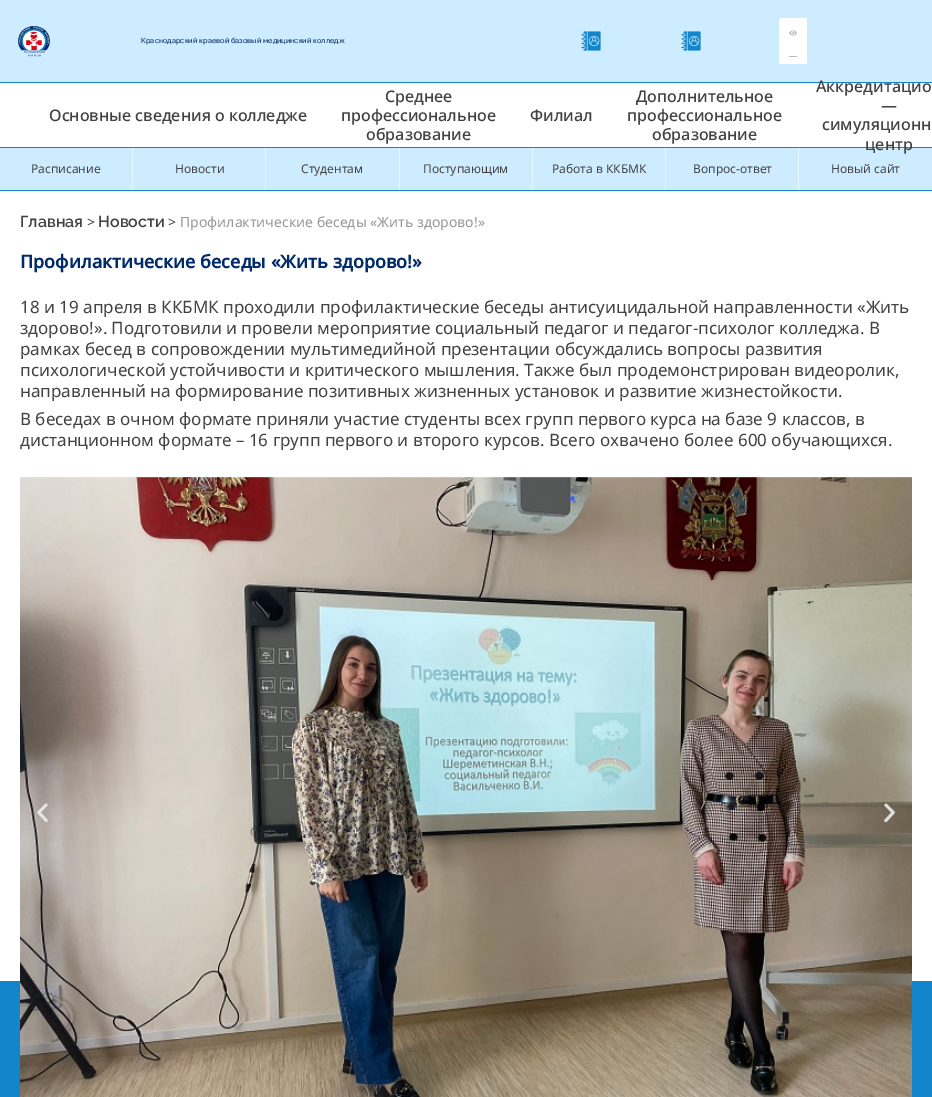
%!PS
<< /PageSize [932 1097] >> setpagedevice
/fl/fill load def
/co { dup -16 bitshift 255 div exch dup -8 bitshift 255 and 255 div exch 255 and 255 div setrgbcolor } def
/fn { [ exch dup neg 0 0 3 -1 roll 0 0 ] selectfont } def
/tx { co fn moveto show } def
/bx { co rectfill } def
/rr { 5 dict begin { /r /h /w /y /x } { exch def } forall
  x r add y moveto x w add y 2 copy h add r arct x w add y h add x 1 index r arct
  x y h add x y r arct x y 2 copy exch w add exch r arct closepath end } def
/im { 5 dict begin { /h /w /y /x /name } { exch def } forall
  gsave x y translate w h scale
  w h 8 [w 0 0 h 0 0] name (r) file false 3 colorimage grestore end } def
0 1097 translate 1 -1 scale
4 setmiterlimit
0 0 932 1097 16#FFFFFF bx
0 0 932 82 16#CEECFF bx
0 82 932 1 16#1385CB bx
(media/1.raw) 18 26 32 31 im
(media/2.raw) 581 31 20 20 im
(media/2.raw) 681 31 20 20 im
16#FFFFFF co
779 18 28 46 2 rr fl
(media/3.raw) 789 30 8 6 im
789 56 8 1 16#BBBBBB bx
0 148 932 42 16#CEECFF bx
0 147 932 1 16#1385CB bx
0 190 932 1 16#1385CB bx
132 148 1 42 16#E9F7FF bx
265 148 1 42 16#E9F7FF bx
399 148 1 42 16#E9F7FF bx
532 148 1 42 16#E9F7FF bx
665 148 1 42 16#E9F7FF bx
798 148 1 42 16#E9F7FF bx
0 981 932 116 16#1385CB bx
(media/4.raw) 20 477 892 620 im
(media/5.raw) 37 803 11 20 im
(media/6.raw) 884 803 11 20 im
(Краснодарский краевой базовый медицинский колледж) 141 43 /Raleway-Medium 7.4 16#002B6B tx
(Основные сведения о колледже) 49 121 /NotoSans-Medium 16 16#424242 tx
(Среднее) 385 102 /NotoSans-Medium 16 16#424242 tx
(профессиональное) 341 121 /NotoSans-Medium 16 16#424242 tx
(образование) 366 140 /NotoSans-Medium 16 16#424242 tx
(Филиал) 530 121 /NotoSans-Medium 16 16#424242 tx
(Дополнительное) 636 102 /NotoSans-Medium 16 16#424242 tx
(профессиональное) 627 121 /NotoSans-Medium 16 16#424242 tx
(образование) 652 140 /NotoSans-Medium 16 16#424242 tx
(Аккредитацио) 816 92 /NotoSans-Medium 16 16#424242 tx
(—) 881 111 /NotoSans-Medium 16 16#424242 tx
(симуляционн) 822 130 /NotoSans-Medium 16 16#424242 tx
(центр) 865 150 /NotoSans-Medium 16 16#424242 tx
(Расписание) 31 173 /NotoSans-Regular 12 16#424242 tx
(Новости) 175 173 /NotoSans-Regular 12 16#424242 tx
(Студентам) 301 173 /NotoSans-Regular 12 16#424242 tx
(Поступающим) 423 173 /NotoSans-Regular 12 16#424242 tx
(Работа в ККБМК) 552 173 /NotoSans-Regular 12 16#424242 tx
(Вопрос-ответ) 693 173 /NotoSans-Regular 12 16#424242 tx
(Новый сайт) 831 173 /NotoSans-Regular 12 16#424242 tx
(Главная) 20 227 /Raleway-SemiBold 16 16#424242 tx
(>) 87 227 /NotoSans-Regular 14 16#424242 tx
(Новости) 98 227 /Raleway-SemiBold 16 16#424242 tx
(>) 168 227 /NotoSans-Regular 14 16#424242 tx
(Профилактические беседы «Жить здорово!») 180 227 /NotoSans-Regular 14 16#989696 tx
(Профилактические беседы «Жить здорово!») 20 268 /NotoSans-Bold 18 16#002B6B tx
(18 и 19 апреля в ККБМК проходили профилактические беседы антисуицидальной направленности «Жить) 20 313 /NotoSans-Regular 17 16#424242 tx
(здорово!». Подготовили и провели мероприятие социальный педагог и педагог-психолог колледжа. В) 20 334 /NotoSans-Regular 17 16#424242 tx
(рамках бесед в сопровождении мультимедийной презентации обсуждались вопросы развития) 20 355 /NotoSans-Regular 17 16#424242 tx
(психологической устойчивости и критического мышления. Также был продемонстрирован видеоролик,) 20 376 /NotoSans-Regular 17 16#424242 tx
(направленный на формирование позитивных жизненных установок и развитие жизнестойкости.) 20 397 /NotoSans-Regular 17 16#424242 tx
(В беседах в очном формате приняли участие студенты всех групп первого курса на базе 9 классов, в) 20 425 /NotoSans-Regular 17 16#424242 tx
(дистанционном формате – 16 групп первого и второго курсов. Всего охвачено более 600 обучающихся.) 20 446 /NotoSans-Regular 17 16#424242 tx
showpage
